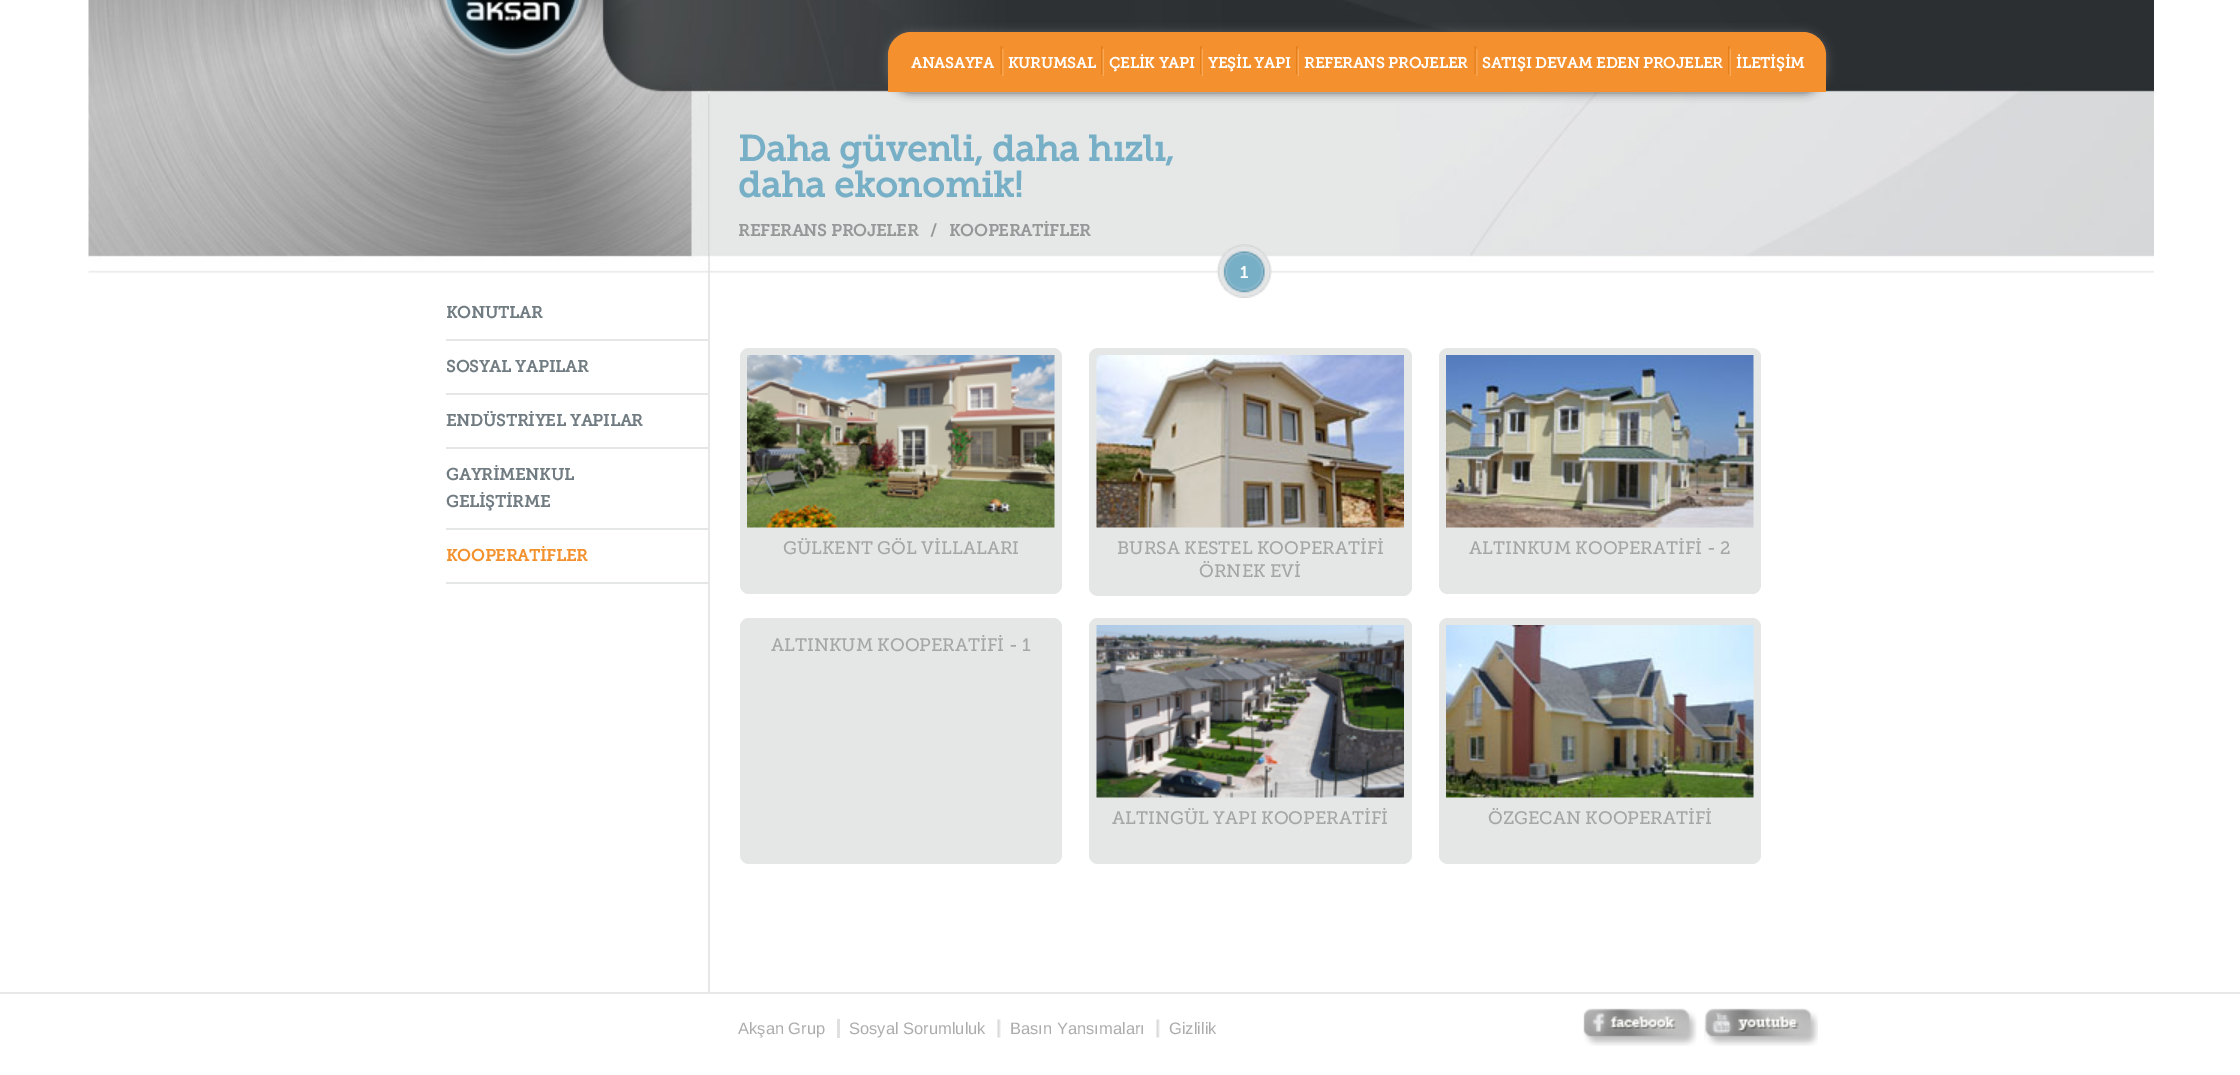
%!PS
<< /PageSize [2240 1075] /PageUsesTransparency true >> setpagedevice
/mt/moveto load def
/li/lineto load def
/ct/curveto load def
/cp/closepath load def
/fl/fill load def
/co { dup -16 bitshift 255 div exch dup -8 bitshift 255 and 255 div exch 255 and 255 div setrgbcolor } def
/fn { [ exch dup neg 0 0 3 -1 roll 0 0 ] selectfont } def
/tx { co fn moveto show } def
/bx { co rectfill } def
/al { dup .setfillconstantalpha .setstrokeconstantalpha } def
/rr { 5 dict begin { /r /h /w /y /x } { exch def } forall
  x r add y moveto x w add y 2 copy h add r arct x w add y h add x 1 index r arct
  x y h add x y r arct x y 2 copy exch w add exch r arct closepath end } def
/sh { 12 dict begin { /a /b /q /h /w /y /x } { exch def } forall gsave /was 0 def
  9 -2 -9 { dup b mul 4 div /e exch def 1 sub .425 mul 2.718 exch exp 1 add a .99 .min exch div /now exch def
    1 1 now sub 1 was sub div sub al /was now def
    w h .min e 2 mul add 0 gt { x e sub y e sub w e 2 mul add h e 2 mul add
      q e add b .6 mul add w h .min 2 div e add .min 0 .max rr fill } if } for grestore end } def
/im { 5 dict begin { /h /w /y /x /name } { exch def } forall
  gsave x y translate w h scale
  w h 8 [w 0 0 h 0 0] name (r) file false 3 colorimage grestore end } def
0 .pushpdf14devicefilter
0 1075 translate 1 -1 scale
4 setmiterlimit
0 0 2240 1075 16#FFFFFF bx
(media/1.raw) 88 0 2066 273 im
(media/2.raw) 440 0 145 59 im
16#666666 co
888 33 938 60 23 4.5 1 sh
16#F4902D co
911 32 mt 1803 32 li 1815.5 32 1826 42.5 1826 55 ct 1826 92 li 888 92 li 888 55 li 888 42.5 898.5 32 911 32 ct cp fl
(media/3.raw) 1000 46 4 30 im
(media/4.raw) 1101 46 3 30 im
(media/4.raw) 1200 46 3 30 im
(media/5.raw) 1296 46 3 30 im
(media/3.raw) 1474 46 4 30 im
(media/5.raw) 1728 46 3 30 im
446 339 262 2 16#E5E7E7 bx
446 393 262 2 16#E5E7E7 bx
446 447 262 2 16#E5E7E7 bx
446 528 262 2 16#E5E7E7 bx
446 582 262 2 16#E5E7E7 bx
708 255 2 737 16#E7E7E7 bx
(media/6.raw) 708 91 2 165 im
(media/7.raw) 1216 244 56 54 im
16#E5E7E7 co
740 348 322 246 9 rr fl
(media/8.raw) 747 355 308 173 im
1089 348 323 248 9 rr fl
(media/9.raw) 1096 355 308 173 im
1439 348 322 246 9 rr fl
(media/10.raw) 1446 355 308 173 im
740 618 322 246 9 rr fl
1089 618 323 246 9 rr fl
(media/11.raw) 1096 625 308 173 im
1439 618 322 246 9 rr fl
(media/12.raw) 1446 625 308 173 im
0 992 2240 2 16#E8E8E8 bx
837 1019 3 19 16#E0E0E0 bx
(media/13.raw) 997 1019 4 19 im
(media/13.raw) 1156 1019 4 19 im
(media/14.raw) 1583 1008 114 38 im
(media/15.raw) 1704 1008 114 38 im
(ANASAYFA) 911 68 /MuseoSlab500-Bold 15 16#FFFFFF tx
(KURUMSAL) 1008 68 /MuseoSlab500-Bold 15 16#FFFFFF tx
(ÇELİK YAPI) 1109 68 /MuseoSlab500-Bold 15 16#FFFFFF tx
(YEŞİL YAPI) 1208 68 /MuseoSlab500-Bold 15 16#FFFFFF tx
(REFERANS PROJELER) 1304 68 /MuseoSlab500-Bold 15 16#FFFFFF tx
(SATIŞI DEVAM EDEN PROJELER) 1482 68 /MuseoSlab500-Bold 15 16#FFFFFF tx
(İLETİŞİM) 1736 68 /MuseoSlab500-Bold 15 16#FFFFFF tx
(KONUTLAR) 446 318 /MuseoSlab500-Bold 16.5 16#717C82 tx
(SOSYAL YAPILAR) 446 372 /MuseoSlab500-Bold 16.5 16#717C82 tx
(ENDÜSTRİYEL YAPILAR) 446 426 /MuseoSlab500-Bold 16.5 16#717C82 tx
(GAYRİMENKUL) 446 480 /MuseoSlab500-Bold 16.5 16#717C82 tx
(GELİŞTİRME) 446 507 /MuseoSlab500-Bold 16.5 16#717C82 tx
(KOOPERATİFLER) 446 561 /MuseoSlab500-Bold 16.5 16#F3912E tx
(Daha güvenli, daha hızlı,) 738 161 /MuseoSlab500-Bold 36 16#77AFC7 tx
(daha ekonomik!) 738 197 /MuseoSlab500-Bold 36 16#77AFC7 tx
(REFERANS PROJELER) 738 236 /MuseoSlab500-Bold 16.5 16#959898 tx
(/) 930 236 /MuseoSlab500-Bold 16.5 16#959898 tx
(KOOPERATİFLER) 949 236 /MuseoSlab500-Bold 16.5 16#959898 tx
(1) 1240 278 /MuseoSlab500-Bold 16.5 16#FFFFFF tx
(GÜLKENT GÖL VİLLALARI) 783 554 /MuseoSlab500-Regular 18 16#A6A6A6 tx
(BURSA KESTEL KOOPERATİFİ) 1117 554 /MuseoSlab500-Regular 18 16#A6A6A6 tx
(ÖRNEK EVİ) 1199 577 /MuseoSlab500-Regular 18 16#A6A6A6 tx
(ALTINKUM KOOPERATİFİ - 2) 1469 554 /MuseoSlab500-Regular 18 16#A6A6A6 tx
(ALTINKUM KOOPERATİFİ - 1) 771 651 /MuseoSlab500-Regular 18 16#A6A6A6 tx
(ALTINGÜL YAPI KOOPERATİFİ) 1112 824 /MuseoSlab500-Regular 18 16#A6A6A6 tx
(ÖZGECAN KOOPERATİFİ) 1488 824 /MuseoSlab500-Regular 18 16#A6A6A6 tx
(Akşan Grup) 738 1034 /LiberationSans-Regular 16.5 16#ACACAC tx
(Sosyal Sorumluluk) 849 1034 /LiberationSans-Regular 16.5 16#ACACAC tx
(Basın Yansımaları) 1010 1034 /LiberationSans-Regular 16.5 16#ACACAC tx
(Gizlilik) 1169 1034 /LiberationSans-Regular 16.5 16#ACACAC tx
.poppdf14devicefilter showpage
